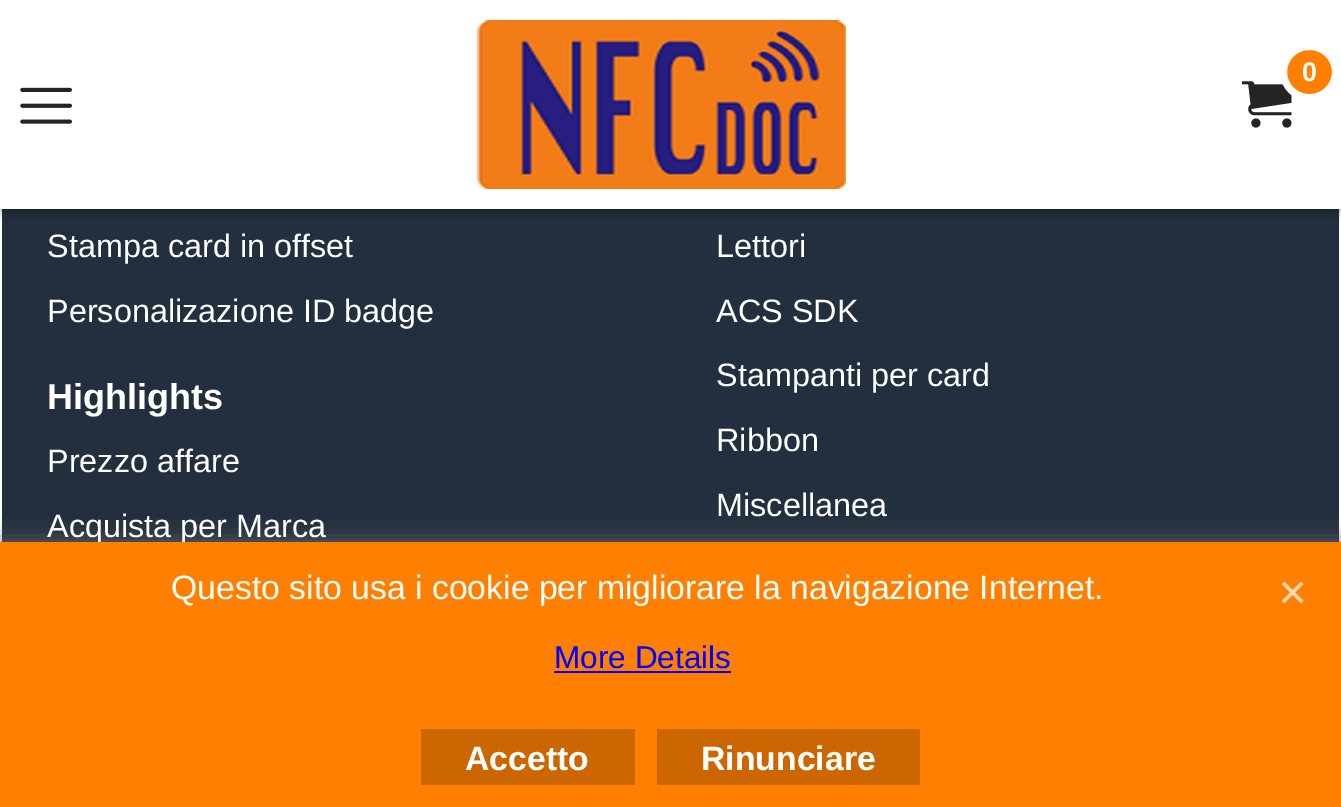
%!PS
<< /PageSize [1341 807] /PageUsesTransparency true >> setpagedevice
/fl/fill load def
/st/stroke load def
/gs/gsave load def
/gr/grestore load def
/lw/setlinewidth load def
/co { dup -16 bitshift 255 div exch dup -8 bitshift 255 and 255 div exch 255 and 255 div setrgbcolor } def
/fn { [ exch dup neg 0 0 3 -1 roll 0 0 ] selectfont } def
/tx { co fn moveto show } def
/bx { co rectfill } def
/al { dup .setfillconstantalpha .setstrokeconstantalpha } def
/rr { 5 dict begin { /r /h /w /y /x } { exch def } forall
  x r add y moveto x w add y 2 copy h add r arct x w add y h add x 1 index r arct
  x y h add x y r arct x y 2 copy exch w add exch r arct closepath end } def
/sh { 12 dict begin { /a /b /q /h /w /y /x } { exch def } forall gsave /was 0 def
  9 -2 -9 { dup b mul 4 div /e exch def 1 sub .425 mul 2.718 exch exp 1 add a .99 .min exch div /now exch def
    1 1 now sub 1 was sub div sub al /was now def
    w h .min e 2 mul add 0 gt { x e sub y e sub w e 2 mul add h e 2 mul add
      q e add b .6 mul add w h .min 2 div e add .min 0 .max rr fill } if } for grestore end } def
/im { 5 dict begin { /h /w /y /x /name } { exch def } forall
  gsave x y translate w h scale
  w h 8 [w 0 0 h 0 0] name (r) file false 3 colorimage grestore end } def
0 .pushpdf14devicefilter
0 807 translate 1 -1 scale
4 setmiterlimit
0 0 1341 807 16#FFFFFF bx
2 209 1337 333 16#232F3E bx
16#000000 co
-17 -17 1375 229 0 5.5 .3 sh
0 0 1341 209 16#FFFFFF bx
(media/1.raw) 477 20 369 169 im
(media/2.raw) 1242 81 50 47 im
16#FF7F00 co
1283.5 46.5 52 51 25.5 rr gs fl gr
16#FFFFFF co
7 lw
st
(media/3.raw) 20 87 52 37 im
16#666666 co
0 542 1341 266 0 11 1 sh
(0) 1302 81 /LiberationSans-Bold 27 16#FFFFFF tx
(Stampa card in offset) 47 257 /LiberationSans-Regular 32.4 16#FFFFFF tx
(Personalizazione ID badge) 47 322 /LiberationSans-Regular 32.4 16#FFFFFF tx
(Lettori) 716 257 /LiberationSans-Regular 32.4 16#FFFFFF tx
(ACS SDK) 716 322 /LiberationSans-Regular 32.4 16#FFFFFF tx
(Stampanti per card) 716 386 /LiberationSans-Regular 32.4 16#FFFFFF tx
(Ribbon) 716 451 /LiberationSans-Regular 32.4 16#FFFFFF tx
(Miscellanea) 716 516 /LiberationSans-Regular 32.4 16#FFFFFF tx
(Highlights) 47 409 /LiberationSans-Bold 36 16#FFFFFF tx
(Prezzo affare) 47 472 /LiberationSans-Regular 32.4 16#FFFFFF tx
(Acquista per Marca) 47 537 /LiberationSans-Regular 32.4 16#FFFFFF tx
0 542 1341 265 16#FF7F00 bx
(Questo sito usa i cookie per migliorare la navigazione Internet.) 171 599 /LiberationSans-Regular 33.75 16#FFFFFF tx
(More Details) 554 668 /LiberationSans-Regular 31.5 16#0000FF tx
554 671 177 2 16#0000FF bx
(media/4.raw) 1281 581 23 23 im
421 729 214 56 16#CC6600 bx
(Accetto) 465 770 /LiberationSans-Bold 33.75 16#FFFFFF tx
657 729 263 56 16#CC6600 bx
(Rinunciare) 701 770 /LiberationSans-Bold 33.75 16#FFFFFF tx
.poppdf14devicefilter showpage
